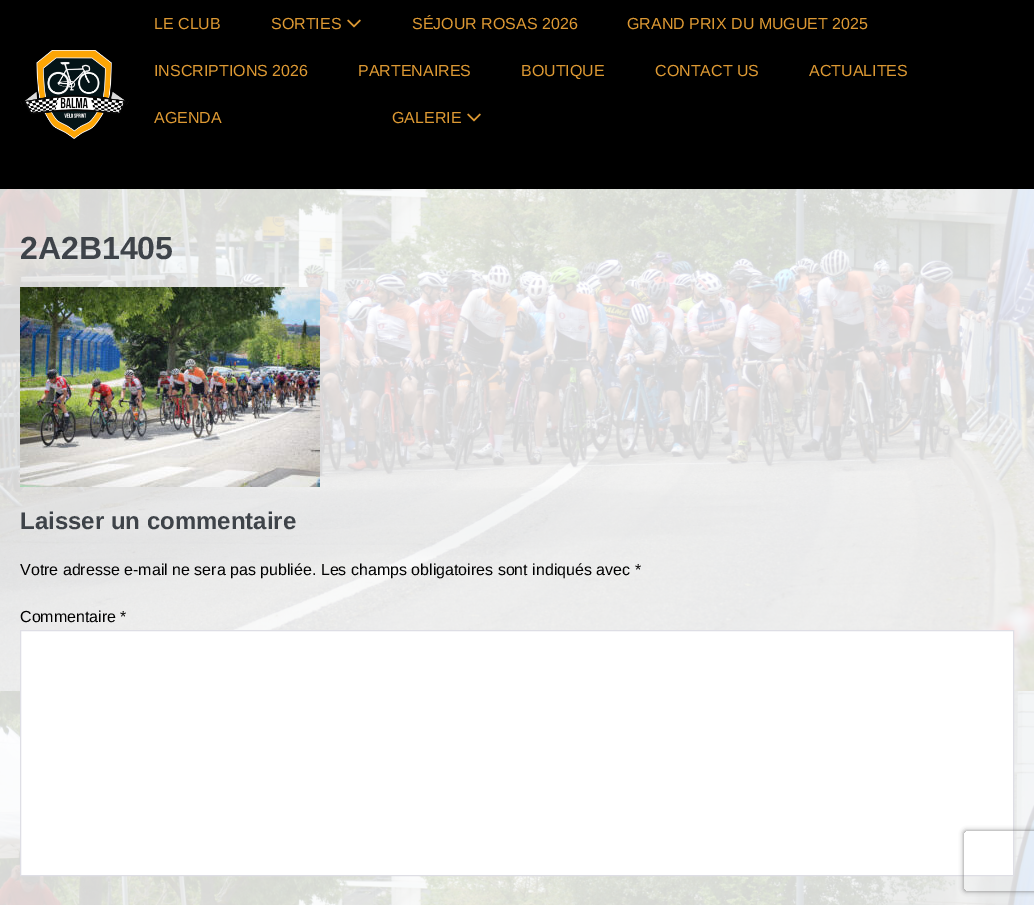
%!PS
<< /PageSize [1034 905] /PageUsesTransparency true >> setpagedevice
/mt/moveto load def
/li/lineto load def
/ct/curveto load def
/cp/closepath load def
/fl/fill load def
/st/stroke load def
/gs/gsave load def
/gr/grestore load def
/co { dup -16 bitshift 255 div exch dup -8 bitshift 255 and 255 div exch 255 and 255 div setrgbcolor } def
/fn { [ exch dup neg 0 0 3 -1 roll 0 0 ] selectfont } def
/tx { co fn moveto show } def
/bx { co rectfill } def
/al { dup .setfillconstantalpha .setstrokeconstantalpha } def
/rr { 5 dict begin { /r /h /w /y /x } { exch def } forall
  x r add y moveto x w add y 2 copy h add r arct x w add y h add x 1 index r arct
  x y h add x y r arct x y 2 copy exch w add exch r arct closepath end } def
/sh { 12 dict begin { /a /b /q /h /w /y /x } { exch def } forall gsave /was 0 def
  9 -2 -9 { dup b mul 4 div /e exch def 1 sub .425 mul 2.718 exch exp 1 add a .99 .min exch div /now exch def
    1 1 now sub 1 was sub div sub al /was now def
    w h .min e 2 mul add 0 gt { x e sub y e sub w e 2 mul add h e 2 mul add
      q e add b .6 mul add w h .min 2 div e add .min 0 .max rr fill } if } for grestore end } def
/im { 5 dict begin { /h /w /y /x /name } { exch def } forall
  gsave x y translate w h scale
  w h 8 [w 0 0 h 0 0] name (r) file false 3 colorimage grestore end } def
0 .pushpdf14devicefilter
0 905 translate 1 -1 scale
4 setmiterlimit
0 0 1034 905 16#FFFFFF bx
(media/1.raw) 0 189 1034 716 im
0 0 1034 189 16#000000 bx
(media/2.raw) 20 50 109 89 im
(media/3.raw) 347 19 14 9 im
(media/3.raw) 467 113 14 9 im
(media/4.raw) 20 287 300 200 im
16#FFFFFF co
20.5 630.5 mt 1013.5 630.5 li 1013.5 875.5 li 20.5 875.5 li cp gs fl gr
16#DEDEE5 co
st
gs
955 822 mt 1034 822 li 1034 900 li 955 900 li cp 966 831 mt 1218 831 li 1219 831 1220 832 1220 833 ct 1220 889 li 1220 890 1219 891 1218 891 ct 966 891 li 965 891 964 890 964 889 ct 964 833 li 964 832 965 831 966 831 ct cp eoclip newpath
16#808080 co
964 831 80 60 2 2.5 1 sh
gr
(LE CLUB) 154 29 /LiberationSans-Regular 16 16#DD9933 tx
(SORTIES) 271 29 /LiberationSans-Regular 16 16#DD9933 tx
(SÉJOUR ROSAS 2026) 412 29 /LiberationSans-Regular 16 16#DD9933 tx
(GRAND PRIX DU MUGUET 2025) 627 29 /LiberationSans-Regular 16 16#DD9933 tx
(INSCRIPTIONS 2026) 154 76 /LiberationSans-Regular 16 16#DD9933 tx
(PARTENAIRES) 358 76 /LiberationSans-Regular 16 16#DD9933 tx
(BOUTIQUE) 521 76 /LiberationSans-Regular 16 16#DD9933 tx
(CONTACT US) 655 76 /LiberationSans-Regular 16 16#DD9933 tx
(ACTUALITES) 809 76 /LiberationSans-Regular 16 16#DD9933 tx
(AGENDA) 154 123 /LiberationSans-Regular 16 16#DD9933 tx
(GALERIE) 392 123 /LiberationSans-Regular 16 16#DD9933 tx
(2A2B1405) 20 259 /LiberationSans-Bold 32 16#3E4349 tx
(Laisser un commentaire) 20 529 /LiberationSans-Bold 24 16#3E4349 tx
(Votre adresse e-mail ne sera pas publiée. Les champs obligatoires sont indiqués avec *) 20 575 /LiberationSans-Regular 16 16#000000 tx
(Commentaire *) 20 622 /LiberationSans-Regular 16 16#000000 tx
.poppdf14devicefilter showpage
